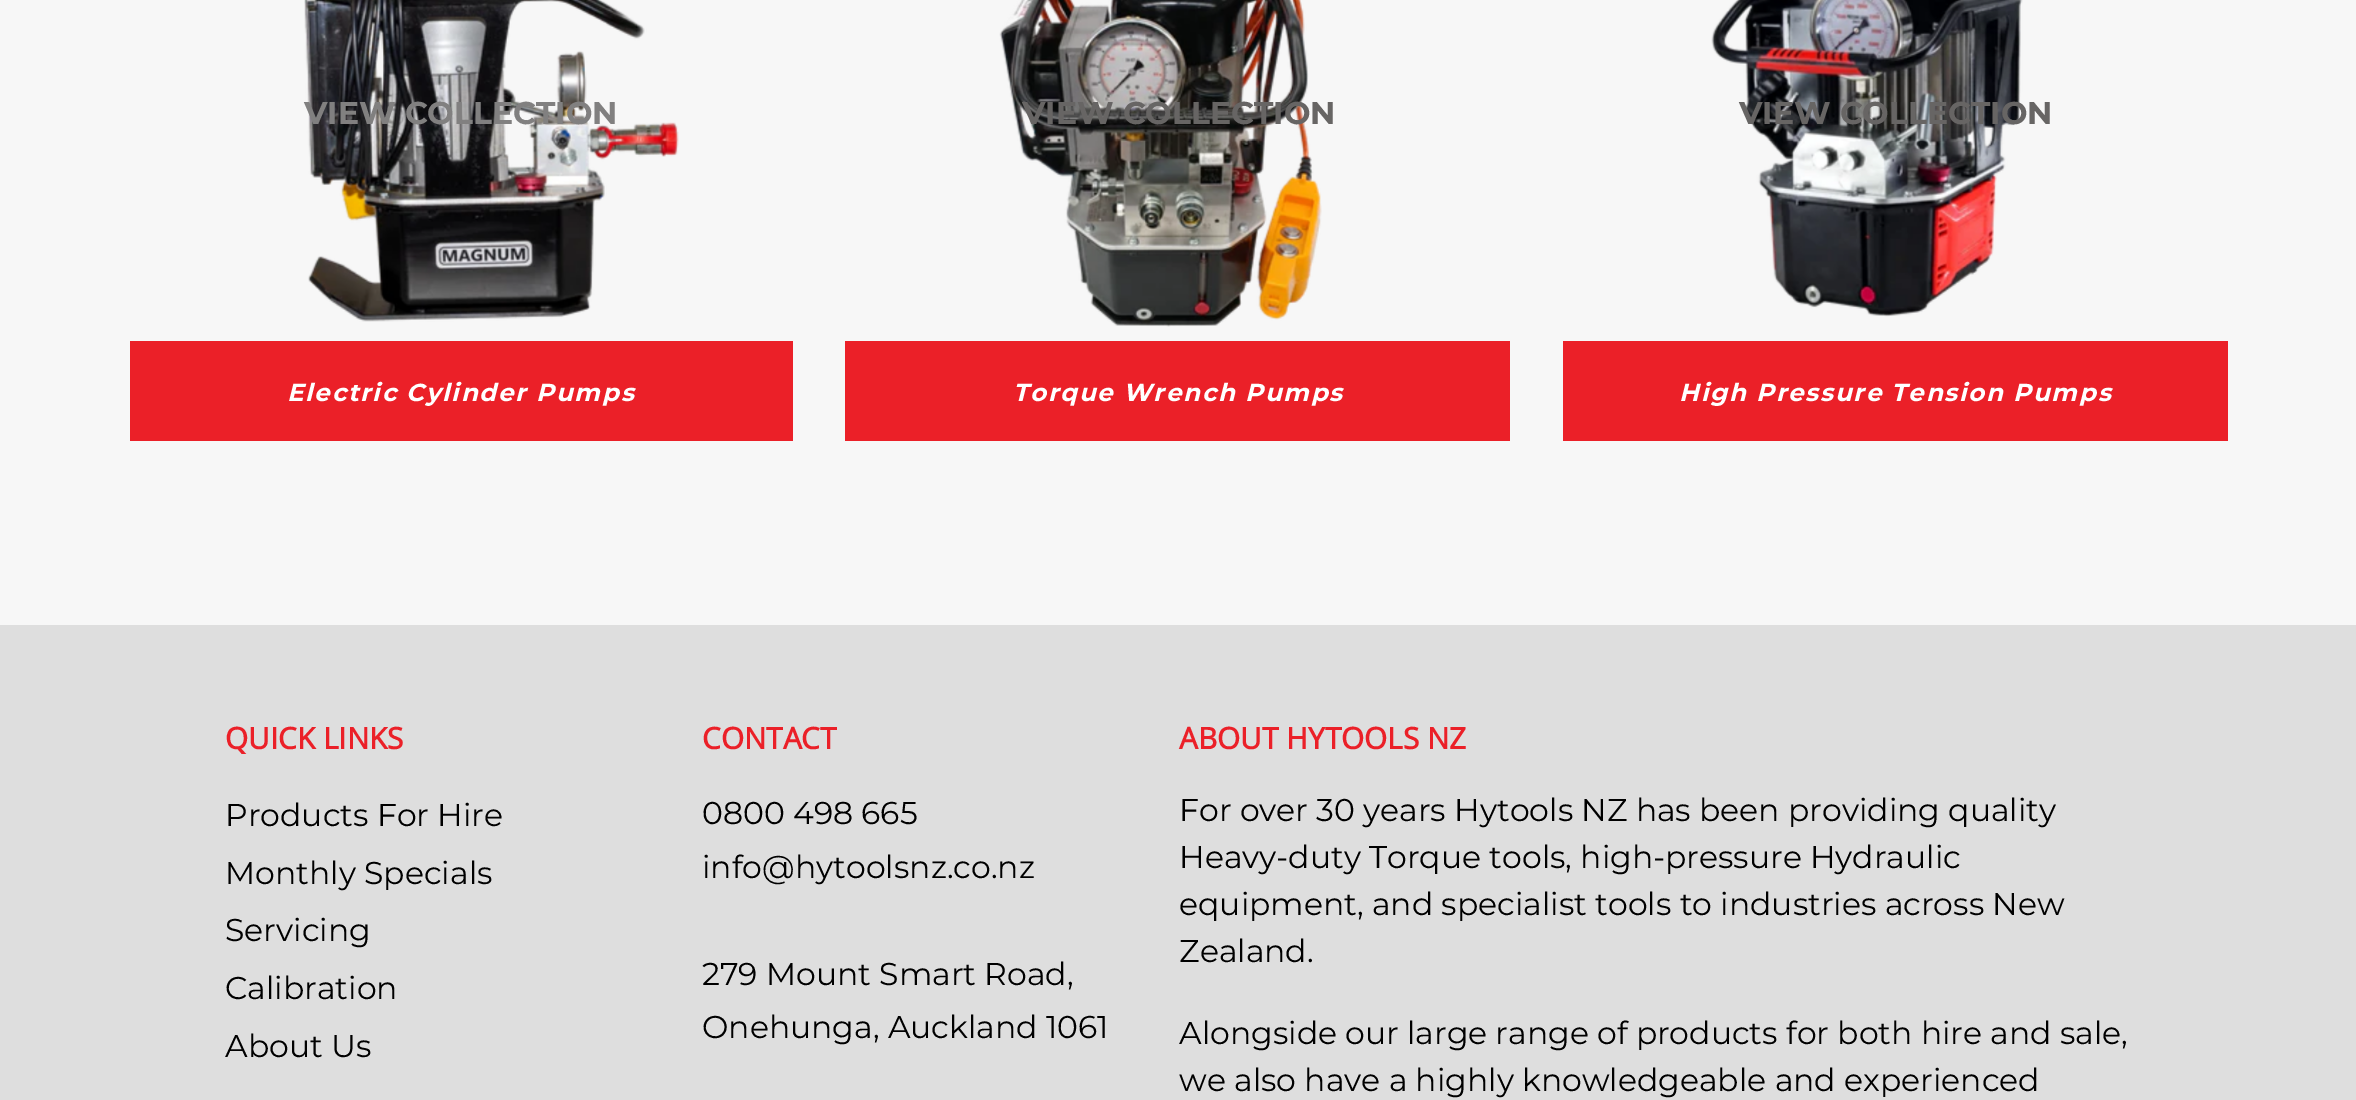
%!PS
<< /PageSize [2356 1100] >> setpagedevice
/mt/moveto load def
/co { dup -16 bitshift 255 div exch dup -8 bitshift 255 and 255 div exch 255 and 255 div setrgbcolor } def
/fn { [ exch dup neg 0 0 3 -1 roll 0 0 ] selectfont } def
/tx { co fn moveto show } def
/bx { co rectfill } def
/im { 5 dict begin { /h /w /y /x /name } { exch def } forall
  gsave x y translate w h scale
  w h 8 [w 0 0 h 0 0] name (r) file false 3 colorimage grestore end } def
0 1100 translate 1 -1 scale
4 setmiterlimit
0 0 2356 1100 16#F7F7F7 bx
(media/1.raw) 304 0 375 322 im
130 341 663 100 16#EB2028 bx
(media/2.raw) 999 0 323 327 im
845 341 665 100 16#EB2028 bx
(media/3.raw) 1711 0 312 317 im
1563 341 665 100 16#EB2028 bx
0 625 2356 475 16#DEDEDE bx
(VIEW COLLECTION) 304 124 /Montserrat-Bold 31.5 16#818080 tx
/Montserrat-BoldItalic 24.5 fn
16#FFFFFF co
287 401 mt 1.75 0 (Electric Cylinder Pumps) ashow
(VIEW COLLECTION) 1022 124 /Montserrat-Bold 31.5 16#676564 tx
/Montserrat-BoldItalic 24.5 fn
16#FFFFFF co
1013 401 mt 1.75 0 (Torque Wrench Pumps) ashow
(VIEW COLLECTION) 1739 124 /Montserrat-Bold 31.5 16#676564 tx
/Montserrat-BoldItalic 24.5 fn
16#FFFFFF co
1679 401 mt 1.75 0 (High Pressure Tension Pumps) ashow
(QUICK LINKS) 225 749 /OpenSans-Bold 29.75 16#EB2028 tx
(Products For Hire) 225 826 /Montserrat-Regular 31.5 16#000000 tx
(Monthly Specials) 225 884 /Montserrat-Regular 31.5 16#000000 tx
(Servicing) 225 941 /Montserrat-Regular 31.5 16#000000 tx
(Calibration) 225 999 /Montserrat-Regular 31.5 16#000000 tx
(About Us) 225 1057 /Montserrat-Regular 31.5 16#000000 tx
(CONTACT) 702 749 /OpenSans-Bold 29.75 16#EB2028 tx
(0800 498 665) 702 824 /Montserrat-Regular 31.5 16#000000 tx
(info@hytoolsnz.co.nz) 702 878 /Montserrat-Regular 31.5 16#000000 tx
(279 Mount Smart Road,) 702 985 /Montserrat-Regular 31.5 16#000000 tx
(Onehunga, Auckland 1061) 702 1038 /Montserrat-Regular 31.5 16#000000 tx
(ABOUT HYTOOLS NZ) 1179 749 /OpenSans-Bold 29.75 16#EB2028 tx
(For over 30 years Hytools NZ has been providing quality) 1179 821 /Montserrat-Regular 31.5 16#000000 tx
(Heavy-duty Torque tools, high-pressure Hydraulic) 1179 868 /Montserrat-Regular 31.5 16#000000 tx
(equipment, and specialist tools to industries across New) 1179 915 /Montserrat-Regular 31.5 16#000000 tx
(Zealand.) 1179 962 /Montserrat-Regular 31.5 16#000000 tx
(Alongside our large range of products for both hire and sale,) 1179 1044 /Montserrat-Regular 31.5 16#000000 tx
(we also have a highly knowledgeable and experienced) 1179 1091 /Montserrat-Regular 31.5 16#000000 tx
showpage
